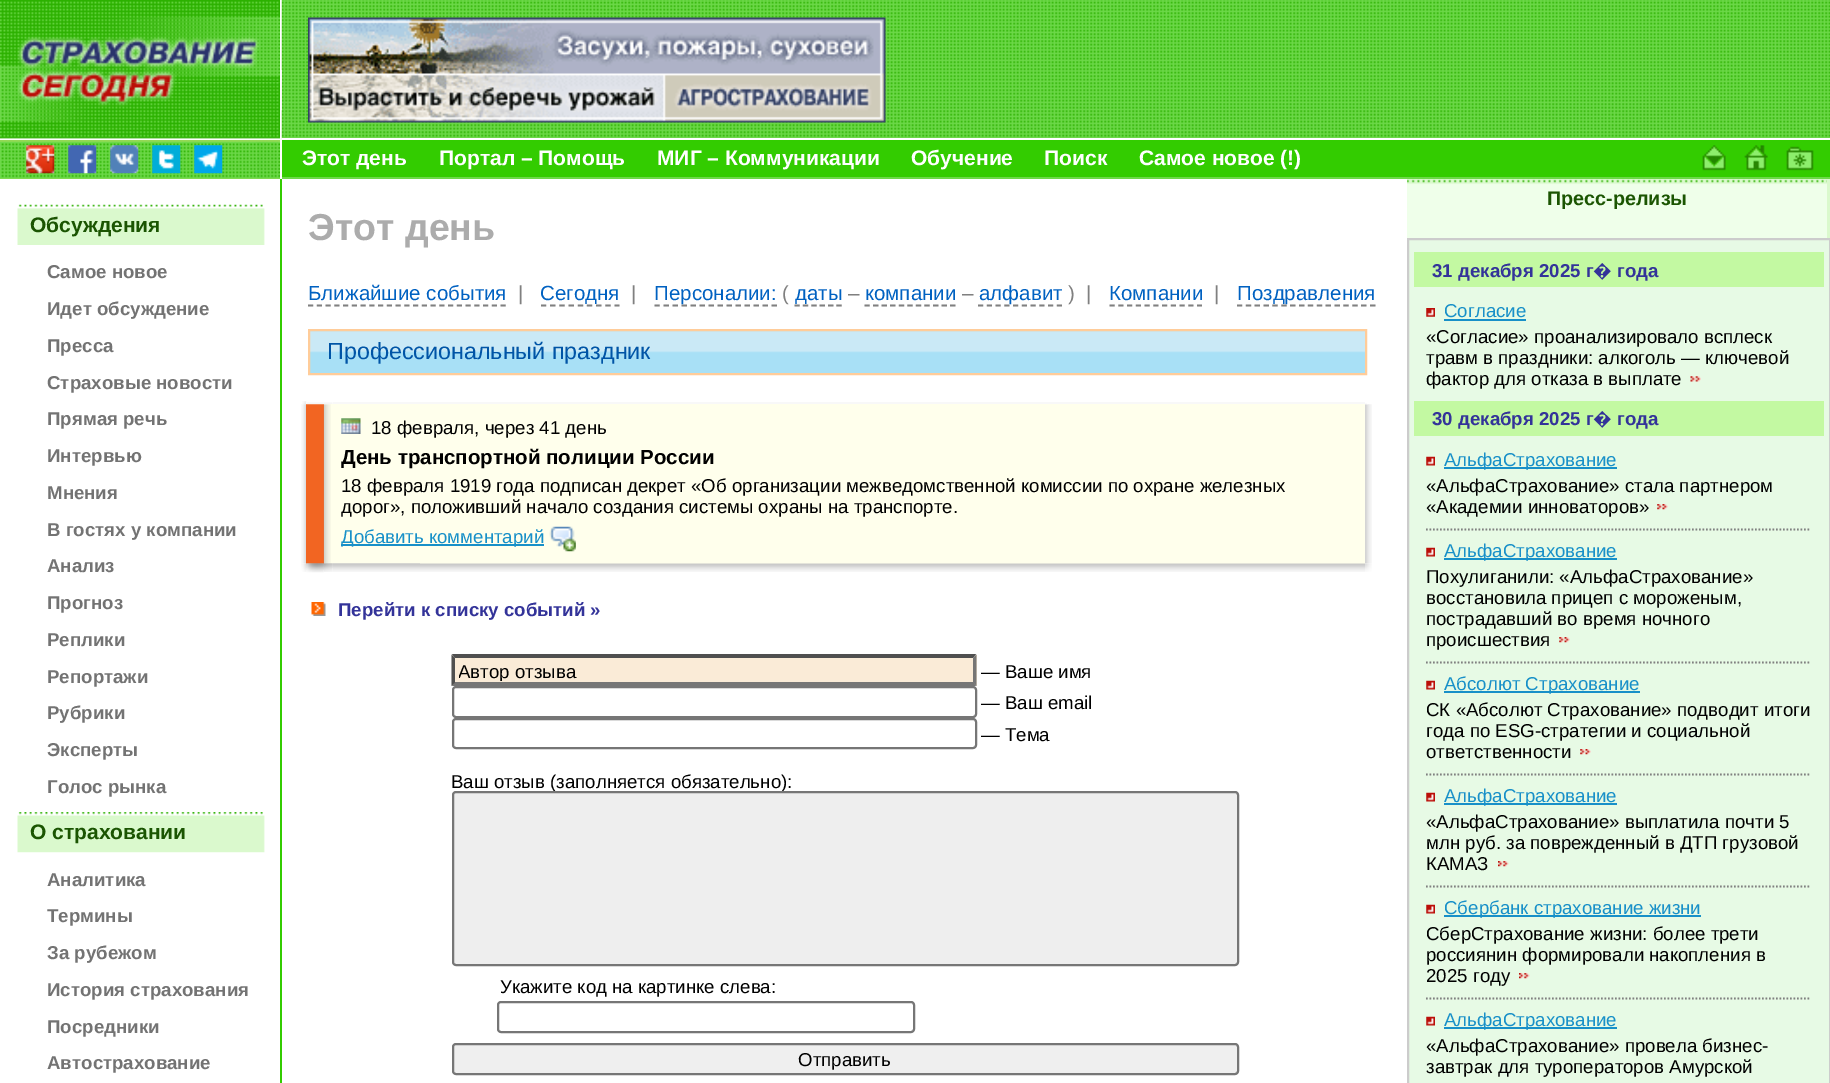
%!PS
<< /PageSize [1830 1083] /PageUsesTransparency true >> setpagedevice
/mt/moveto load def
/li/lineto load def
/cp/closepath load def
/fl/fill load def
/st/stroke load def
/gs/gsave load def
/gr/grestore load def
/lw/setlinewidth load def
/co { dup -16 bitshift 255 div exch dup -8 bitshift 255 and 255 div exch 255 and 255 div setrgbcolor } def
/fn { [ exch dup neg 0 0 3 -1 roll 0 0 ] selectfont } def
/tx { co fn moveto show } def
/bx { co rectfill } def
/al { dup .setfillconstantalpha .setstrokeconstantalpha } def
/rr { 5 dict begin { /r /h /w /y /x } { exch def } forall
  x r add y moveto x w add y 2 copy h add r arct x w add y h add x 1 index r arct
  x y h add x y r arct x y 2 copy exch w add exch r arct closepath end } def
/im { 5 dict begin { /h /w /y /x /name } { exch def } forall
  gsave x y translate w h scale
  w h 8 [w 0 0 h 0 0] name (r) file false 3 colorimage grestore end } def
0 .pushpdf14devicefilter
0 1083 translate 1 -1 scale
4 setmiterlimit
0 0 1830 1083 16#FFFFFF bx
(media/1.raw) 0 0 280 83 im
(media/2.raw) 0 82 280 58 im
0 140 280 39 16#95D856 bx
(media/3.raw) 0 141 280 38 im
(media/4.raw) 26 145 29 29 im
(media/5.raw) 68 145 29 29 im
(media/6.raw) 110 145 29 29 im
(media/7.raw) 152 145 29 29 im
(media/8.raw) 194 145 29 29 im
(media/10.raw) 281 0 1549 139 im
(media/9.raw) 281 70 1 41 im
282 177 1548 2 16#6DD949 bx
(media/11.raw) 308 17 578 106 im
282 138 1548 1 16#FFFFFF bx
282 140 1548 37 16#33CC00 bx
(media/12.raw) 1702 145 24 26 im
(media/13.raw) 1744 145 24 26 im
(media/14.raw) 1786 146 28 25 im
(media/15.raw) 17 204 248 41 im
(media/16.raw) 17 812 248 41 im
280 179 2 904 16#33CC00 bx
16#808080 co
1.8 lw
[5.25 3.5] 0 setdash
308 305.5 mt 506 305.5 li st
[5.25 3.94] 0 setdash
541 305.5 mt 619.5 305.5 li st
[5.25 3.76] 0 setdash
654.5 305.5 mt 777 305.5 li st
[5.25 3.15] 0 setdash
794.5 305.5 mt 842 305.5 li st
[5.25 3.32] 0 setdash
864.5 305.5 mt 955.5 305.5 li st
[5.25 3.5] 0 setdash
978 305.5 mt 1062 305.5 li st
1109.5 305.5 mt 1202 305.5 li st
[5.25 3.62] 0 setdash
1237 305.5 mt 1375.5 305.5 li st
(media/17.raw) 310 331 1055 42 im
16#FFCC99 co
2 lw
[] 0 setdash
309 330 1057 44 rectstroke
(media/18.raw) 302 401 5 4 im
306 404 18 160 16#F26522 bx
306 404 1 1 16#F26D2E bx
(media/19.raw) 307 402 17 2 im
324 404 1041 160 16#FFFFEC bx
(media/24.raw) 323 404 8 160 im
(media/20.raw) 306 404 18 1 im
(media/21.raw) 324 402 9 2 im
(media/22.raw) 323 404 7 1 im
333 402 1032 2 16#F8F8F8 bx
1365 403 2 1 16#FAFAFA bx
(media/25.raw) 1365 404 7 160 im
0.25 al
1365 404 3 1 16#FBFBFB bx
1 al
(media/23.raw) 301 404 5 160 im
(media/26.raw) 341 418 20 16 im
341 544 203 2 16#1890C8 bx
(media/27.raw) 549 526 27 26 im
(media/28.raw) 301 563 6 9 im
(media/29.raw) 306 563 18 10 im
306 563 1 1 16#E6A383 bx
(media/31.raw) 323 563 10 9 im
(media/30.raw) 306 563 18 7 im
(media/33.raw) 332 563 1033 9 im
(media/32.raw) 323 563 10 5 im
(media/34.raw) 332 563 88 1 im
(media/35.raw) 1365 563 7 9 im
(media/36.raw) 311 602 15 14 im
452 655 525 31 16#FAEBD7 bx
16#4F4F4F co
452 654 mt 976 654 li 973 658 li 455 658 li cp fl
16#767676 co
976.5 654.5 mt 976.5 686 li 973 682.5 li 973 658 li cp fl
976 686 mt 452 686 li 455 682 li 973 682 li cp fl
16#4F4F4F co
451.5 686 mt 451.5 654.5 li 455 658 li 455 682.5 li cp fl
16#767676 co
453 687 523 30 3 rr st
453 719 523 29 3 rr st
498 1002 416 30 3 rr st
16#EFEFEF co
453 1044 785 30 3 rr gs fl gr
16#767676 co
st
1407 179 423 59 16#DAF9CD bx
(media/37.raw) 1407 179 420 59 im
16#E7FAE5 co
1408 239 mt 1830 239 li 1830 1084 li 1408 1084 li cp gs fl gr
16#CCCCCC co
st
1414 252 410 35 16#C3F9A2 bx
(media/38.raw) 1426 308 9 9 im
1444 319 82 2 16#1890C8 bx
(media/39.raw) 1690 376 11 6 im
1414 401 410 35 16#C3F9A2 bx
(media/40.raw) 1426 456 9 10 im
1444 467 173 2 16#1890C8 bx
(media/41.raw) 1657 504 11 6 im
16#808080 co
1.8 lw
[1.75 1.75] 0 setdash
1426 529.5 mt 1811 529.5 li st
(media/40.raw) 1426 547 9 10 im
1444 558 173 2 16#1890C8 bx
(media/42.raw) 1559 637 11 6 im
16#808080 co
1426 662.5 mt 1811 662.5 li st
(media/40.raw) 1426 680 9 10 im
1444 691 196 2 16#1890C8 bx
(media/42.raw) 1580 749 11 6 im
16#808080 co
1426 774.5 mt 1811 774.5 li st
(media/40.raw) 1426 792 9 10 im
1444 803 173 2 16#1890C8 bx
(media/43.raw) 1498 861 11 6 im
16#808080 co
1426 886.5 mt 1811 886.5 li st
(media/40.raw) 1426 904 9 10 im
1444 915 257 2 16#1890C8 bx
(media/43.raw) 1519 973 11 6 im
16#808080 co
1426 998.5 mt 1811 998.5 li st
(media/40.raw) 1426 1016 9 10 im
1444 1027 173 2 16#1890C8 bx
(Этот день) 302 165 /LiberationSans-Bold 21 16#FFFFFF tx
(Портал – Помощь) 439 165 /LiberationSans-Bold 21 16#FFFFFF tx
(МИГ – Коммуникации) 657 165 /LiberationSans-Bold 21 16#FFFFFF tx
(Обучение) 911 165 /LiberationSans-Bold 21 16#FFFFFF tx
(Поиск) 1044 165 /LiberationSans-Bold 21 16#FFFFFF tx
(Самое новое \(!\)) 1139 165 /LiberationSans-Bold 21 16#FFFFFF tx
(Обсуждения) 30 232 /LiberationSans-Bold 21 16#1B5502 tx
(Самое новое) 47 278 /LiberationSans-Bold 18.67 16#737373 tx
(Идет обсуждение) 47 315 /LiberationSans-Bold 18.67 16#737373 tx
(Пресса) 47 352 /LiberationSans-Bold 18.67 16#737373 tx
(Страховые новости) 47 389 /LiberationSans-Bold 18.67 16#737373 tx
(Прямая речь) 47 425 /LiberationSans-Bold 18.67 16#737373 tx
(Интервью) 47 462 /LiberationSans-Bold 18.67 16#737373 tx
(Мнения) 47 499 /LiberationSans-Bold 18.67 16#737373 tx
(В гостях у компании) 47 536 /LiberationSans-Bold 18.67 16#737373 tx
(Анализ) 47 572 /LiberationSans-Bold 18.67 16#737373 tx
(Прогноз) 47 609 /LiberationSans-Bold 18.67 16#737373 tx
(Реплики) 47 646 /LiberationSans-Bold 18.67 16#737373 tx
(Репортажи) 47 683 /LiberationSans-Bold 18.67 16#737373 tx
(Рубрики) 47 719 /LiberationSans-Bold 18.67 16#737373 tx
(Эксперты) 47 756 /LiberationSans-Bold 18.67 16#737373 tx
(Голос рынка) 47 793 /LiberationSans-Bold 18.67 16#737373 tx
(О страховании) 30 839 /LiberationSans-Bold 21 16#1B5502 tx
(Аналитика) 47 886 /LiberationSans-Bold 18.67 16#737373 tx
(Термины) 47 922 /LiberationSans-Bold 18.67 16#737373 tx
(За рубежом) 47 959 /LiberationSans-Bold 18.67 16#737373 tx
(История страхования) 47 996 /LiberationSans-Bold 18.67 16#737373 tx
(Посредники) 47 1033 /LiberationSans-Bold 18.67 16#737373 tx
(Автострахование) 47 1069 /LiberationSans-Bold 18.67 16#737373 tx
(Этот день) 308 240 /LiberationSans-Bold 37.5 16#ACACAC tx
(Ближайшие события) 308 300 /LiberationSans-Regular 20.5 16#0061C1 tx
(|) 518 300 /LiberationSans-Regular 20.5 16#808080 tx
(Сегодня) 540 300 /LiberationSans-Regular 20.5 16#0061C1 tx
(|) 631 300 /LiberationSans-Regular 20.5 16#808080 tx
(Персоналии:) 654 300 /LiberationSans-Regular 20.5 16#0061C1 tx
(\() 782 300 /LiberationSans-Regular 20.5 16#808080 tx
(даты) 795 300 /LiberationSans-Regular 20.5 16#0061C1 tx
(–) 848 300 /LiberationSans-Regular 20.5 16#808080 tx
(компании) 865 300 /LiberationSans-Regular 20.5 16#0061C1 tx
(–) 962 300 /LiberationSans-Regular 20.5 16#808080 tx
(алфавит) 979 300 /LiberationSans-Regular 20.5 16#0061C1 tx
(\)) 1068 300 /LiberationSans-Regular 20.5 16#808080 tx
(|) 1086 300 /LiberationSans-Regular 20.5 16#808080 tx
(Компании) 1109 300 /LiberationSans-Regular 20.5 16#0061C1 tx
(|) 1214 300 /LiberationSans-Regular 20.5 16#808080 tx
(Поздравления) 1237 300 /LiberationSans-Regular 20.5 16#0061C1 tx
(Профессиональный праздник) 327 359 /LiberationSans-Regular 23.3 16#0054A6 tx
(18 февраля, через 41 день) 371 434 /LiberationSans-Regular 18.67 16#000000 tx
(День транспортной полиции России) 341 464 /LiberationSans-Bold 20.5 16#000000 tx
(18 февраля 1919 года подписан декрет «Об организации межведомственной комиссии по охране железных) 341 492 /LiberationSans-Regular 18.67 16#000000 tx
(дорог», положивший начало создания системы охраны на транспорте.) 341 513 /LiberationSans-Regular 18.67 16#000000 tx
(Добавить комментарий) 341 543 /LiberationSans-Regular 18.67 16#1890C8 tx
(Перейти к списку событий ») 338 616 /LiberationSans-Bold 18.67 16#333399 tx
gs
459 660 511 21 rectclip
(Автор отзыва) 458 678 /LiberationSans-Regular 18.67 16#000000 tx
gr
(— Ваше имя) 981 678 /LiberationSans-Regular 18.67 16#000000 tx
(— Ваш email) 981 709 /LiberationSans-Regular 18.67 16#000000 tx
(— Тема) 981 741 /LiberationSans-Regular 18.67 16#000000 tx
(Ваш отзыв \(заполняется обязательно\):) 451 788 /LiberationSans-Regular 18.67 16#000000 tx
16#EEEEEE co
453 792 785 173 3 rr gs fl gr
16#767676 co
2 lw
[] 0 setdash
st
(Укажите код на картинке слева:) 500 993 /LiberationSans-Regular 18.67 16#000000 tx
(Отправить) 798 1066 /LiberationSans-Regular 18.67 16#000000 tx
(Пресс-релизы) 1547 205 /LiberationSans-Bold 19.75 16#1B5502 tx
(31 декабря 2025 г) 1432 277 /LiberationSans-Bold 18.67 16#333399 tx
(�) 1593 277 /NotoSans-Bold 18.67 16#333399 tx
(года) 1617 277 /LiberationSans-Bold 18.67 16#333399 tx
(Согласие) 1444 317 /LiberationSans-Regular 18.67 16#1890C8 tx
(«Согласие» проанализировало всплеск) 1426 343 /LiberationSans-Regular 18.67 16#000000 tx
(травм в праздники: алкоголь — ключевой) 1426 364 /LiberationSans-Regular 18.67 16#000000 tx
(фактор для отказа в выплате) 1426 385 /LiberationSans-Regular 18.67 16#000000 tx
(30 декабря 2025 г) 1432 425 /LiberationSans-Bold 18.67 16#333399 tx
(�) 1593 425 /NotoSans-Bold 18.67 16#333399 tx
(года) 1617 425 /LiberationSans-Bold 18.67 16#333399 tx
(АльфаСтрахование) 1444 466 /LiberationSans-Regular 18.67 16#1890C8 tx
(«АльфаСтрахование» стала партнером) 1426 492 /LiberationSans-Regular 18.67 16#000000 tx
(«Академии инноваторов») 1426 513 /LiberationSans-Regular 18.67 16#000000 tx
(АльфаСтрахование) 1444 557 /LiberationSans-Regular 18.67 16#1890C8 tx
(Похулиганили: «АльфаСтрахование») 1426 583 /LiberationSans-Regular 18.67 16#000000 tx
(восстановила прицеп с мороженым,) 1426 604 /LiberationSans-Regular 18.67 16#000000 tx
(пострадавший во время ночного) 1426 625 /LiberationSans-Regular 18.67 16#000000 tx
(происшествия) 1426 646 /LiberationSans-Regular 18.67 16#000000 tx
(Абсолют Страхование) 1444 690 /LiberationSans-Regular 18.67 16#1890C8 tx
(СК «Абсолют Страхование» подводит итоги) 1426 716 /LiberationSans-Regular 18.67 16#000000 tx
(года по ESG-стратегии и социальной) 1426 737 /LiberationSans-Regular 18.67 16#000000 tx
(ответственности) 1426 758 /LiberationSans-Regular 18.67 16#000000 tx
(АльфаСтрахование) 1444 802 /LiberationSans-Regular 18.67 16#1890C8 tx
(«АльфаСтрахование» выплатила почти 5) 1426 828 /LiberationSans-Regular 18.67 16#000000 tx
(млн руб. за поврежденный в ДТП грузовой) 1426 849 /LiberationSans-Regular 18.67 16#000000 tx
(КАМАЗ) 1426 870 /LiberationSans-Regular 18.67 16#000000 tx
(Сбербанк страхование жизни) 1444 914 /LiberationSans-Regular 18.67 16#1890C8 tx
(СберСтрахование жизни: более трети) 1426 940 /LiberationSans-Regular 18.67 16#000000 tx
(россиянин формировали накопления в) 1426 961 /LiberationSans-Regular 18.67 16#000000 tx
(2025 году) 1426 982 /LiberationSans-Regular 18.67 16#000000 tx
(АльфаСтрахование) 1444 1026 /LiberationSans-Regular 18.67 16#1890C8 tx
(«АльфаСтрахование» провела бизнес-) 1426 1052 /LiberationSans-Regular 18.67 16#000000 tx
(завтрак для туроператоров Амурской) 1426 1073 /LiberationSans-Regular 18.67 16#000000 tx
.poppdf14devicefilter showpage
